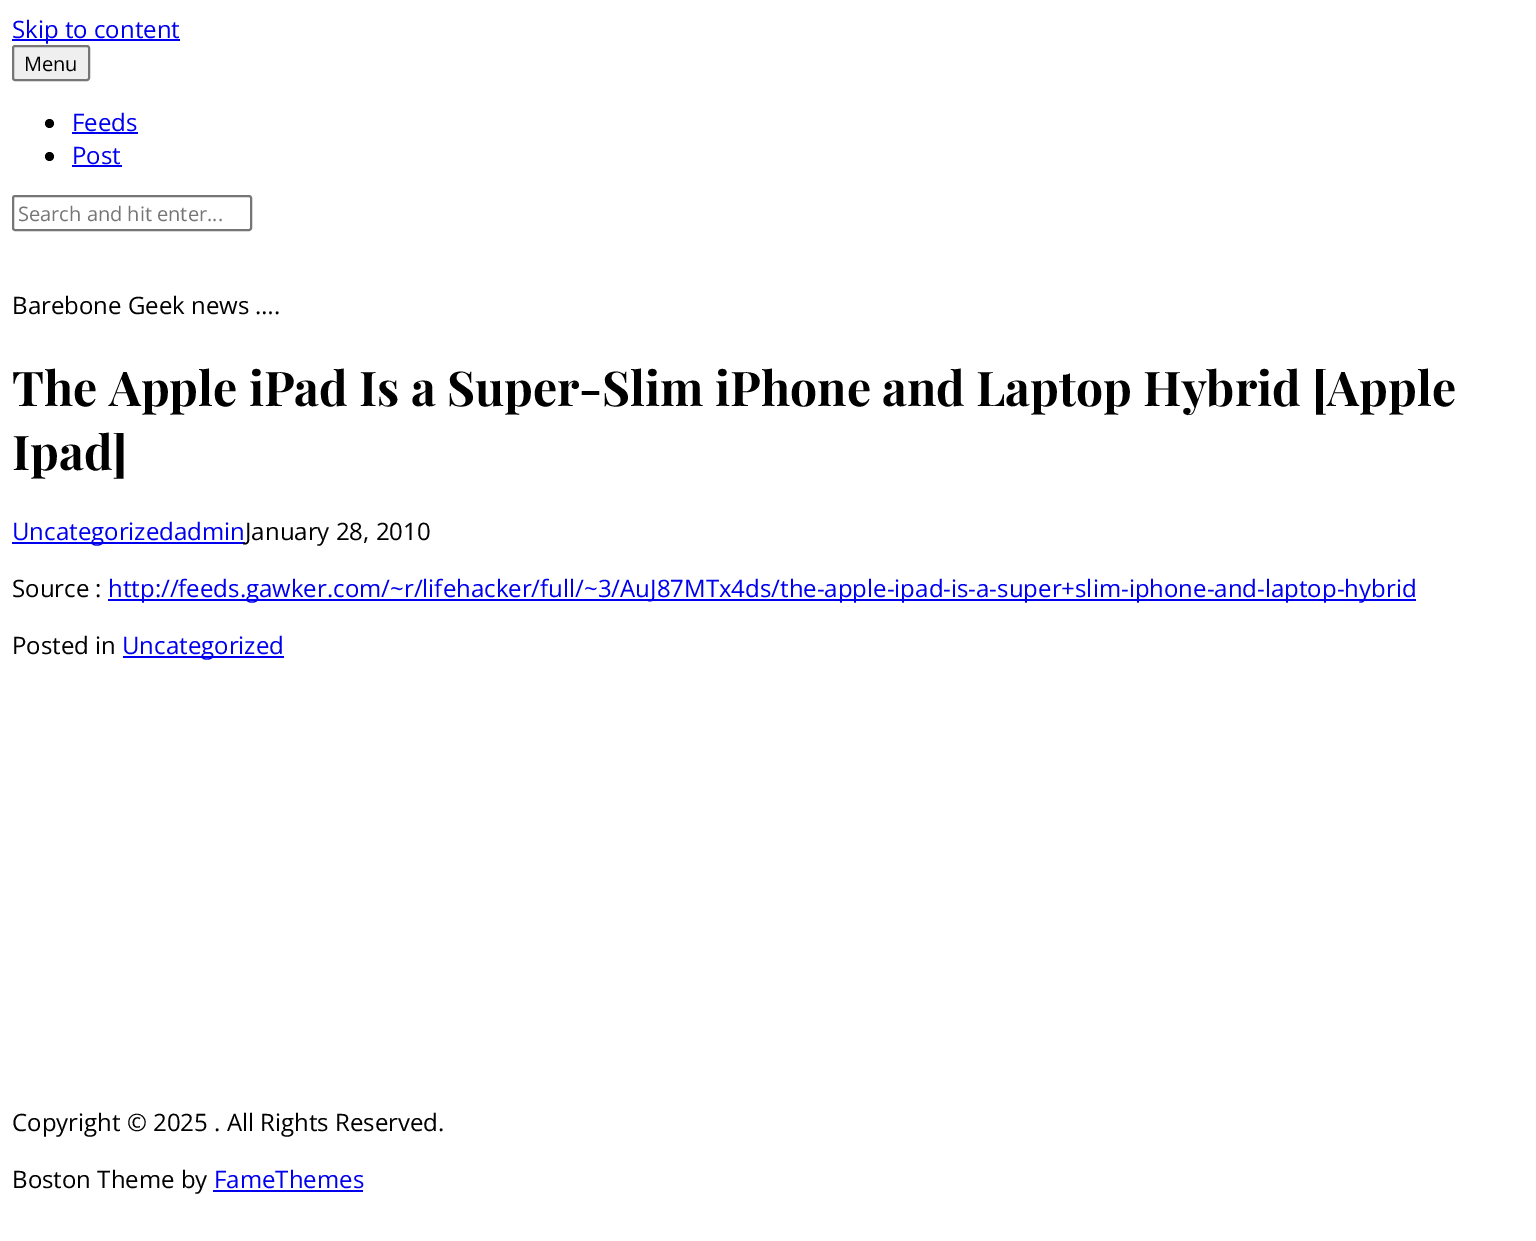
%!PS
<< /PageSize [1536 1241] >> setpagedevice
/fl/fill load def
/st/stroke load def
/gs/gsave load def
/gr/grestore load def
/lw/setlinewidth load def
/co { dup -16 bitshift 255 div exch dup -8 bitshift 255 and 255 div exch 255 and 255 div setrgbcolor } def
/fn { [ exch dup neg 0 0 3 -1 roll 0 0 ] selectfont } def
/tx { co fn moveto show } def
/bx { co rectfill } def
/ci { newpath 0 360 arc closepath } def
/rr { 5 dict begin { /r /h /w /y /x } { exch def } forall
  x r add y moveto x w add y 2 copy h add r arct x w add y h add x 1 index r arct
  x y h add x y r arct x y 2 copy exch w add exch r arct closepath end } def
0 1241 translate 1 -1 scale
4 setmiterlimit
0 0 1536 1241 16#FFFFFF bx
12 39 168 2 16#0000EE bx
16#EFEFEF co
13 46 76 34 2 rr gs fl gr
16#767676 co
2 lw
st
16#000000 co
49.5 123.5 4.5 ci fl
72 132 66 2 16#0000EE bx
16#000000 co
49.5 156.5 4.5 ci fl
72 165 50 2 16#0000EE bx
16#767676 co
13 196 238 34 2 rr st
12 542 233 2 16#0000EE bx
108 599 1308 2 16#0000EE bx
123 656 161 2 16#0000EE bx
213 1190 150 2 16#0000EE bx
(Skip to content) 12 38 /OpenSans-Regular 24 16#0000EE tx
(Menu) 24 71 /OpenSans-Regular 20 16#000000 tx
(Feeds) 72 131 /OpenSans-Regular 24 16#0000EE tx
(Post) 72 164 /OpenSans-Regular 24 16#0000EE tx
(Search and hit enter...) 18 221 /OpenSans-Regular 20 16#757575 tx
(Barebone Geek news ….) 12 314 /OpenSans-Regular 24 16#000000 tx
(The Apple iPad Is a Super-Slim iPhone and Laptop Hybrid [Apple) 12 406 /PlayfairDisplay-Bold 48 16#000000 tx
(Ipad]) 12 470 /PlayfairDisplay-Bold 48 16#000000 tx
(Uncategorizedadmin) 12 540 /OpenSans-Regular 24 16#0000EE tx
(January 28, 2010) 245 540 /OpenSans-Regular 24 16#000000 tx
(Source :) 12 597 /OpenSans-Regular 24 16#000000 tx
(http://feeds.gawker.com/~r/lifehacker/full/~3/AuJ87MTx4ds/the-apple-ipad-is-a-super+slim-iphone-and-laptop-hybrid) 108 597 /OpenSans-Regular 24 16#0000EE tx
(Posted in) 12 654 /OpenSans-Regular 24 16#000000 tx
(Uncategorized) 122 654 /OpenSans-Regular 24 16#0000EE tx
(Copyright © 2025 . All Rights Reserved.) 12 1131 /OpenSans-Regular 24 16#000000 tx
(Boston Theme by) 12 1188 /OpenSans-Regular 24 16#000000 tx
(FameThemes) 214 1188 /OpenSans-Regular 24 16#0000EE tx
showpage
